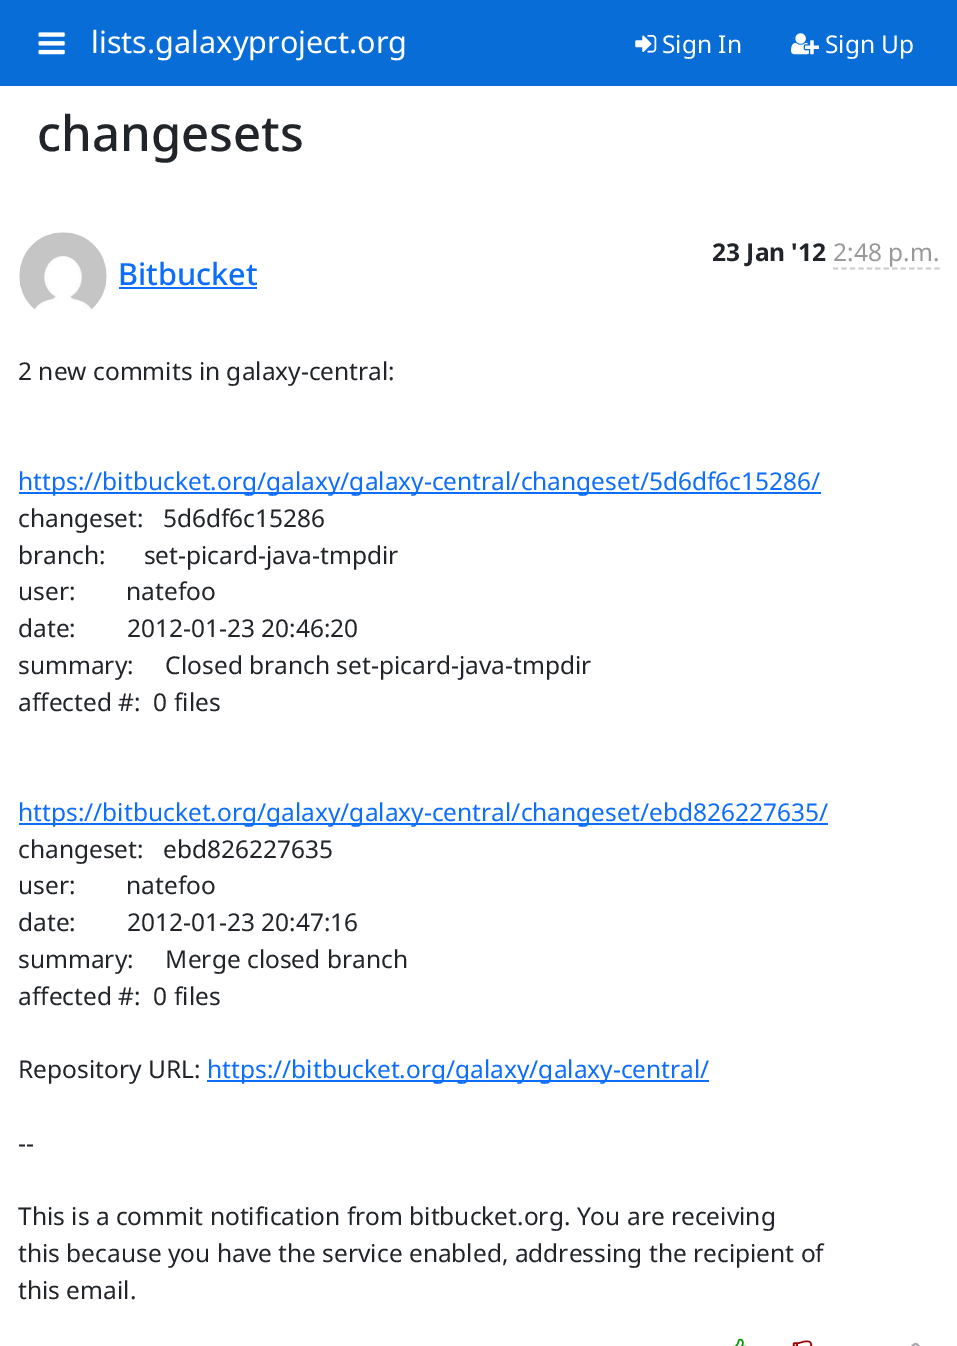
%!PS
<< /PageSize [957 1346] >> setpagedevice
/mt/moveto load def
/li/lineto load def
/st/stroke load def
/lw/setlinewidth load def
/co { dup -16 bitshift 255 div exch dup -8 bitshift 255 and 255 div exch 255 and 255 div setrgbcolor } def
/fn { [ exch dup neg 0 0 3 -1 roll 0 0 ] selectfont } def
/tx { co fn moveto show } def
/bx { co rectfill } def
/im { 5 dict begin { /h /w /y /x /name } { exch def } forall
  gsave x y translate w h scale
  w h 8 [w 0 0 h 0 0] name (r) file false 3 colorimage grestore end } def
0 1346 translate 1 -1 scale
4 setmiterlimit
0 0 957 1346 16#FFFFFF bx
0 0 957 86 16#086DD7 bx
(media/1.raw) 38 32 27 23 im
(media/2.raw) 635 35 22 18 im
(media/3.raw) 791 33 28 22 im
16#CCCCCC co
1.8 lw
[5.25 3.2] 0 setdash
833 268.5 mt 940 268.5 li st
(media/4.raw) 19 232 88 78 im
119 287 138 2 16#0D6EFD bx
19 492 802 2 16#0D6EFD bx
19 823 809 2 16#0D6EFD bx
207 1080 502 2 16#0D6EFD bx
(media/5.raw) 735 1338 12 8 im
(media/6.raw) 792 1340 21 6 im
(media/7.raw) 911 1342 9 4 im
(lists.galaxyproject.org) 91 53 /NotoSans-Regular 30.6 16#FFFFFF tx
(Sign In) 662 53 /NotoSans-Regular 24.5 16#FFFFFF tx
(Sign Up) 825 53 /NotoSans-Regular 24.5 16#FFFFFF tx
(changesets) 37 151 /NotoSans-Medium 49 16#212529 tx
(23 Jan '12) 712 261 /NotoSans-Bold 24.5 16#212529 tx
(2:48 p.m.) 833 261 /NotoSans-Regular 24.5 16#999999 tx
(Bitbucket) 118 285 /NotoSans-Medium 30.6 16#0D6EFD tx
(2 new commits in galaxy-central:) 18 380 /NotoSans-Regular 24.5 16#212529 tx
(https://bitbucket.org/galaxy/galaxy-central/changeset/5d6df6c15286/) 18 490 /NotoSans-Regular 24.5 16#0D6EFD tx
(changeset:   5d6df6c15286) 18 527 /NotoSans-Regular 24.5 16#212529 tx
(branch:      set-picard-java-tmpdir) 18 564 /NotoSans-Regular 24.5 16#212529 tx
(user:        natefoo) 18 600 /NotoSans-Regular 24.5 16#212529 tx
(date:        2012-01-23 20:46:20) 18 637 /NotoSans-Regular 24.5 16#212529 tx
(summary:     Closed branch set-picard-java-tmpdir) 18 674 /NotoSans-Regular 24.5 16#212529 tx
(affected #:  0 files) 18 711 /NotoSans-Regular 24.5 16#212529 tx
(https://bitbucket.org/galaxy/galaxy-central/changeset/ebd826227635/) 18 821 /NotoSans-Regular 24.5 16#0D6EFD tx
(changeset:   ebd826227635) 18 858 /NotoSans-Regular 24.5 16#212529 tx
(user:        natefoo) 18 894 /NotoSans-Regular 24.5 16#212529 tx
(date:        2012-01-23 20:47:16) 18 931 /NotoSans-Regular 24.5 16#212529 tx
(summary:     Merge closed branch) 18 968 /NotoSans-Regular 24.5 16#212529 tx
(affected #:  0 files) 18 1005 /NotoSans-Regular 24.5 16#212529 tx
(Repository URL:) 18 1078 /NotoSans-Regular 24.5 16#212529 tx
(https://bitbucket.org/galaxy/galaxy-central/) 207 1078 /NotoSans-Regular 24.5 16#0D6EFD tx
(--) 18 1152 /NotoSans-Regular 24.5 16#212529 tx
(This is a commit notification from bitbucket.org. You are receiving) 18 1225 /NotoSans-Regular 24.5 16#212529 tx
(this because you have the service enabled, addressing the recipient of) 18 1262 /NotoSans-Regular 24.5 16#212529 tx
(this email.) 18 1299 /NotoSans-Regular 24.5 16#212529 tx
showpage
